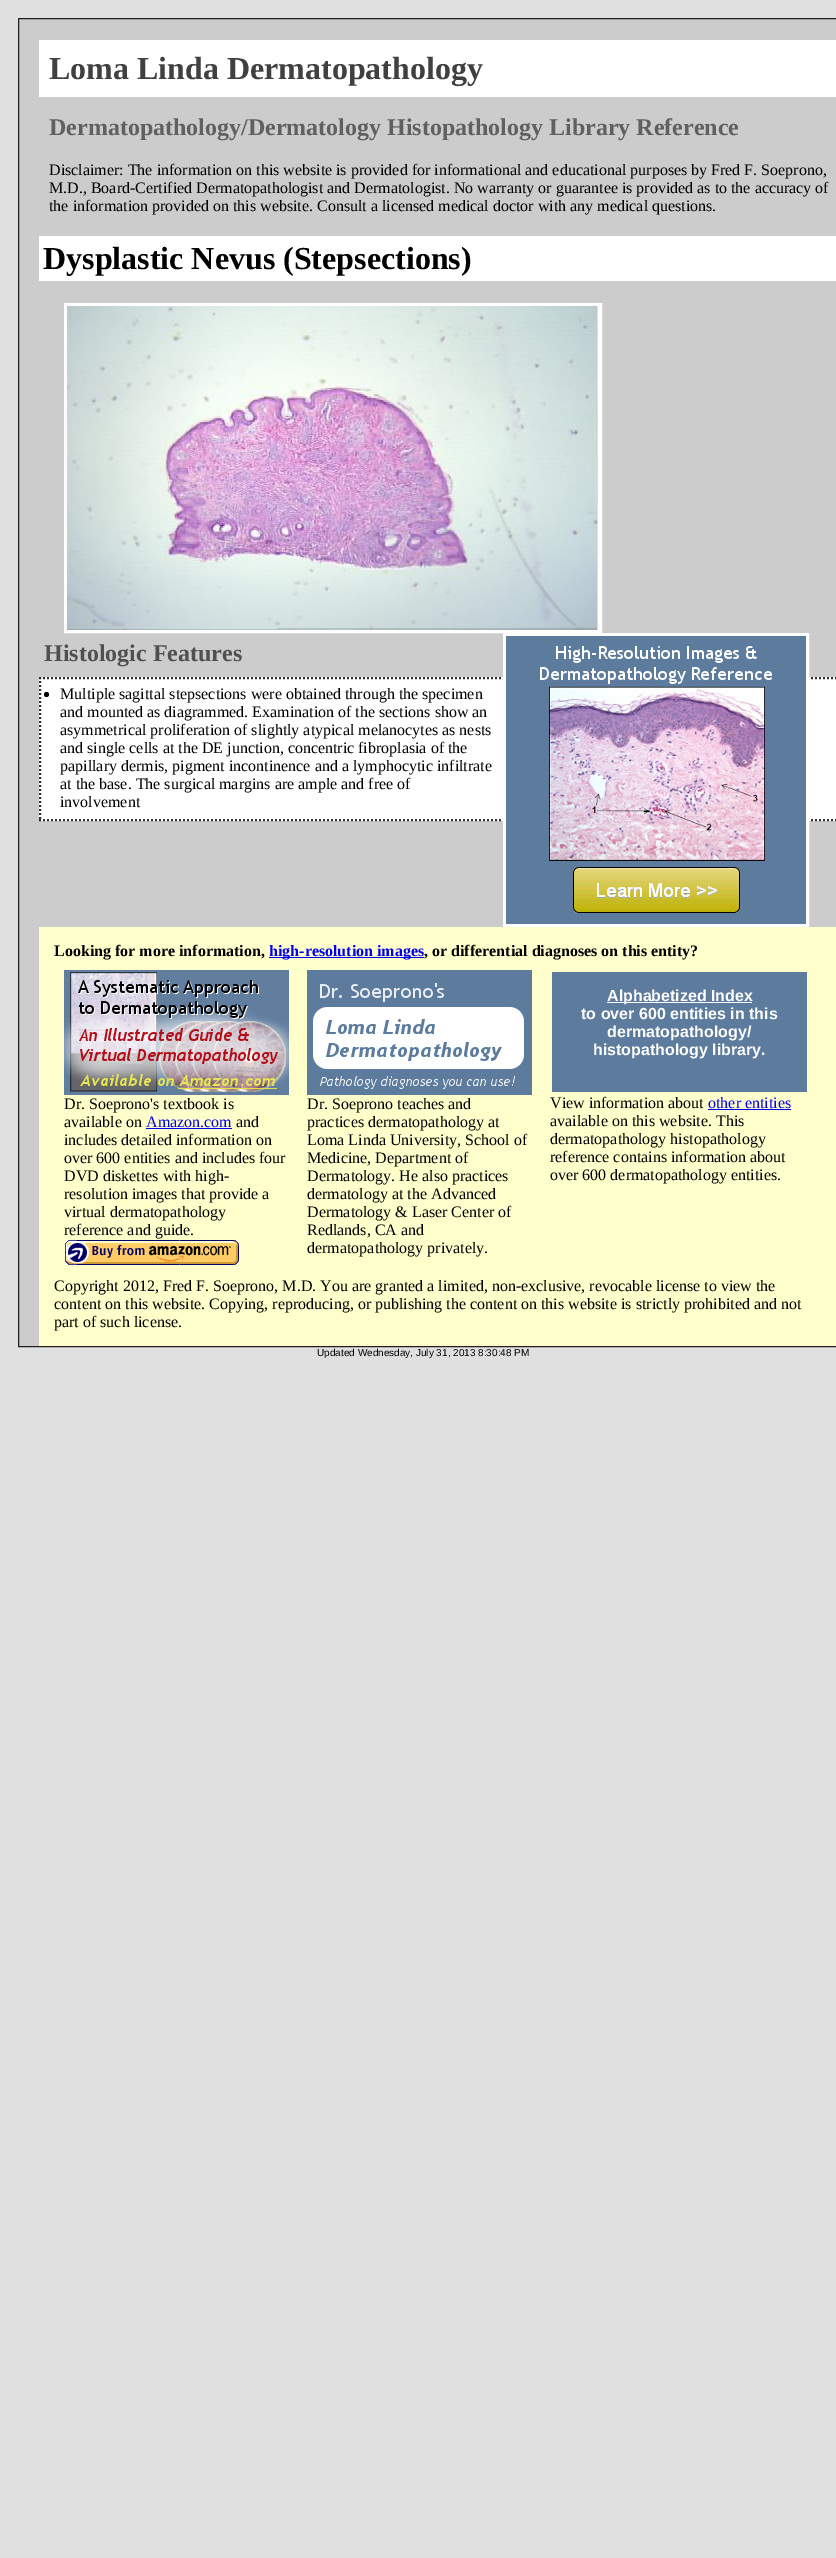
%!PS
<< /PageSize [836 2558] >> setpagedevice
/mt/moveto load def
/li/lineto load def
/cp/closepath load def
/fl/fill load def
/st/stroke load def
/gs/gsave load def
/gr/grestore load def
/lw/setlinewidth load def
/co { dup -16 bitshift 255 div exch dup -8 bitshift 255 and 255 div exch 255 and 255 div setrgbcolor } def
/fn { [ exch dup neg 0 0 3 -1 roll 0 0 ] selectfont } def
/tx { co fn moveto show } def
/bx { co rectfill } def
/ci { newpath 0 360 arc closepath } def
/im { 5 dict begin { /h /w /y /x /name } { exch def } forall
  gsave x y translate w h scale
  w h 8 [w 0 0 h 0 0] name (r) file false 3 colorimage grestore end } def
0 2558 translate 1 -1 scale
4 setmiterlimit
0 0 836 2558 16#E0E0E0 bx
16#CCCCCC co
18.5 18.5 mt 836.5 18.5 li 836.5 1346.5 li 18.5 1346.5 li cp gs fl gr
16#202020 co
st
39 40 797 57 16#FFFFFF bx
39 236 797 45 16#FFFFFF bx
3 lw
65.5 304.5 535 327 rectstroke
(media/1.raw) 67 306 532 324 im
39 677 797 144 16#FFFFFF bx
16#303030 co
2 lw
[2 2] 0 setdash
39 678 mt 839 678 li st
39 820 mt 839 820 li st
16#FFFFFF co
3 lw
[] 0 setdash
504.5 634.5 303 291 rectstroke
(media/2.raw) 506 636 300 288 im
16#303030 co
2 lw
[2 2] 0 setdash
40 677 mt 40 821 li st
16#000000 co
46.5 694.5 2.5 ci fl
39 927 797 419 16#FFFFCC bx
269 957 155 1 16#0000EE bx
(media/3.raw) 64 970 225 125 im
146 1128 86 1 16#0000EE bx
(media/4.raw) 65 1240 174 25 im
(media/5.raw) 307 970 225 125 im
552 972 255 120 16#5D7B9D bx
607 1002 145 1 16#FFFFFF bx
708 1109 83 1 16#0000EE bx
(Loma Linda Dermatopathology) 49 79 /LiberationSerif-Bold 32 16#404040 tx
(Dermatopathology/Dermatology Histopathology Library Reference) 49 135 /LiberationSerif-Bold 24 16#606060 tx
(Disclaimer: The information on this website is provided for informational and educational purposes by Fred F. Soeprono,) 49 175 /LiberationSerif-Regular 16 16#000000 tx
(M.D., Board-Certified Dermatopathologist and Dermatologist. No warranty or guarantee is provided as to the accuracy of) 49 193 /LiberationSerif-Regular 16 16#000000 tx
(the information provided on this website. Consult a licensed medical doctor with any medical questions.) 49 211 /LiberationSerif-Regular 16 16#000000 tx
(Dysplastic Nevus \(Stepsections\)) 43 269 /LiberationSerif-Bold 32 16#000000 tx
(Histologic Features) 44 661 /LiberationSerif-Bold 24 16#505050 tx
(Multiple sagittal stepsections were obtained through the specimen) 60 699 /LiberationSerif-Regular 16 16#000000 tx
(and mounted as diagrammed. Examination of the sections show an) 60 717 /LiberationSerif-Regular 16 16#000000 tx
(asymmetrical proliferation of slightly atypical melanocytes as nests) 60 735 /LiberationSerif-Regular 16 16#000000 tx
(and single cells at the DE junction, concentric fibroplasia of the) 60 753 /LiberationSerif-Regular 16 16#000000 tx
(papillary dermis, pigment incontinence and a lymphocytic infiltrate) 60 771 /LiberationSerif-Regular 16 16#000000 tx
(at the base. The surgical margins are ample and free of) 60 789 /LiberationSerif-Regular 16 16#000000 tx
(involvement) 60 807 /LiberationSerif-Regular 16 16#000000 tx
(Looking for more information,) 54 956 /LiberationSerif-Bold 16 16#000000 tx
(high-resolution images) 269 956 /LiberationSerif-Bold 16 16#0000EE tx
(, or differential diagnoses on this entity?) 424 956 /LiberationSerif-Bold 16 16#000000 tx
(Dr. Soeprono's textbook is) 64 1109 /LiberationSerif-Regular 16 16#000000 tx
(available on) 64 1127 /LiberationSerif-Regular 16 16#000000 tx
(Amazon.com) 146 1127 /LiberationSerif-Regular 16 16#0000EE tx
(and) 236 1127 /LiberationSerif-Regular 16 16#000000 tx
(includes detailed information on) 64 1145 /LiberationSerif-Regular 16 16#000000 tx
(over 600 entities and includes four) 64 1163 /LiberationSerif-Regular 16 16#000000 tx
(DVD diskettes with high-) 64 1181 /LiberationSerif-Regular 16 16#000000 tx
(resolution images that provide a) 64 1199 /LiberationSerif-Regular 16 16#000000 tx
(virtual dermatopathology) 64 1217 /LiberationSerif-Regular 16 16#000000 tx
(reference and guide.) 64 1235 /LiberationSerif-Regular 16 16#000000 tx
(Dr. Soeprono teaches and) 307 1109 /LiberationSerif-Regular 16 16#000000 tx
(practices dermatopathology at) 307 1127 /LiberationSerif-Regular 16 16#000000 tx
(Loma Linda University, School of) 307 1145 /LiberationSerif-Regular 16 16#000000 tx
(Medicine, Department of) 307 1163 /LiberationSerif-Regular 16 16#000000 tx
(Dermatology. He also practices) 307 1181 /LiberationSerif-Regular 16 16#000000 tx
(dermatology at the Advanced) 307 1199 /LiberationSerif-Regular 16 16#000000 tx
(Dermatology & Laser Center of) 307 1217 /LiberationSerif-Regular 16 16#000000 tx
(Redlands, CA and) 307 1235 /LiberationSerif-Regular 16 16#000000 tx
(dermatopathology privately.) 307 1253 /LiberationSerif-Regular 16 16#000000 tx
(Alphabetized Index) 607 1001 /LiberationSans-Bold 16 16#FFFFFF tx
(to over 600 entities in this) 581 1019 /LiberationSans-Bold 16 16#FFFFFF tx
(dermatopathology/) 607 1037 /LiberationSans-Bold 16 16#FFFFFF tx
(histopathology library.) 593 1055 /LiberationSans-Bold 16 16#FFFFFF tx
(View information about) 550 1108 /LiberationSerif-Regular 16 16#000000 tx
(other entities) 708 1108 /LiberationSerif-Regular 16 16#0000EE tx
(available on this website. This) 550 1126 /LiberationSerif-Regular 16 16#000000 tx
(dermatopathology histopathology) 550 1144 /LiberationSerif-Regular 16 16#000000 tx
(reference contains information about) 550 1162 /LiberationSerif-Regular 16 16#000000 tx
(over 600 dermatopathology entities.) 550 1180 /LiberationSerif-Regular 16 16#000000 tx
(Copyright 2012, Fred F. Soeprono, M.D. You are granted a limited, non-exclusive, revocable license to view the) 54 1291 /LiberationSerif-Regular 16 16#000000 tx
(content on this website. Copying, reproducing, or publishing the content on this website is strictly prohibited and not) 54 1309 /LiberationSerif-Regular 16 16#000000 tx
(part of such license.) 54 1327 /LiberationSerif-Regular 16 16#000000 tx
(Updated Wednesday, July 31, 2013 8:30:48 PM) 317 1356 /LiberationSans-Regular 10 16#000000 tx
showpage
